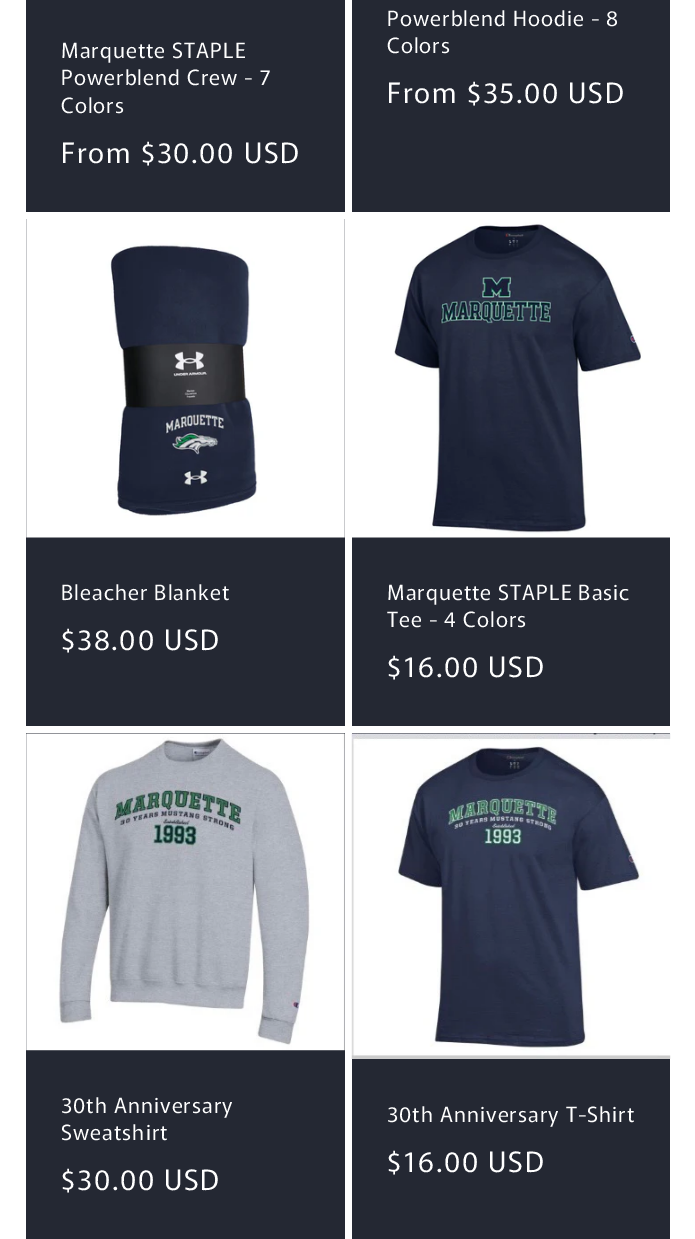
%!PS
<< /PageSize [695 1239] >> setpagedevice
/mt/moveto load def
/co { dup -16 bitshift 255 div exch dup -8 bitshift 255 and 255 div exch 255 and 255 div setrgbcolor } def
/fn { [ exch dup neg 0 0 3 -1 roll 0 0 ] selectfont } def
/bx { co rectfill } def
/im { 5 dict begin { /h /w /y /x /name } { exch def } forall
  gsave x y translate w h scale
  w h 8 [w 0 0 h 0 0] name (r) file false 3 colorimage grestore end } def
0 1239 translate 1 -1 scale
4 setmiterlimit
0 0 695 1239 16#FFFFFF bx
26 0 319 212 16#242833 bx
352 0 318 212 16#242833 bx
26 219 319 507 16#242833 bx
(media/1.raw) 26 219 319 319 im
352 537 318 189 16#242833 bx
(media/2.raw) 352 219 318 319 im
26 733 319 506 16#242833 bx
(media/3.raw) 26 733 319 318 im
352 733 318 506 16#242833 bx
(media/4.raw) 351 733 320 326 im
/Murecho-Regular 21 fn
16#FFFFFF co
61 58 mt 1.05 0 (Marquette STAPLE) ashow
61 85 mt 1.05 0 (Powerblend Crew - 7) ashow
61 113 mt 1.05 0 (Colors) ashow
/Murecho-Regular 28 fn
61 163 mt 1.75 0 (From $30.00 USD) ashow
/Murecho-Regular 21 fn
387 26 mt 1.05 0 (Powerblend Hoodie - 8) ashow
387 53 mt 1.05 0 (Colors) ashow
/Murecho-Regular 28 fn
387 103 mt 1.75 0 (From $35.00 USD) ashow
/Murecho-Regular 21 fn
61 600 mt 1.05 0 (Bleacher Blanket) ashow
/Murecho-Regular 28 fn
61 650 mt 1.75 0 ($38.00 USD) ashow
/Murecho-Regular 21 fn
387 600 mt 1.05 0 (Marquette STAPLE Basic) ashow
387 627 mt 1.05 0 (Tee - 4 Colors) ashow
/Murecho-Regular 28 fn
387 677 mt 1.75 0 ($16.00 USD) ashow
/Murecho-Regular 21 fn
61 1113 mt 1.05 0 (30th Anniversary) ashow
61 1140 mt 1.05 0 (Sweatshirt) ashow
/Murecho-Regular 28 fn
61 1190 mt 1.75 0 ($30.00 USD) ashow
/Murecho-Regular 21 fn
387 1122 mt 1.05 0 (30th Anniversary T-Shirt) ashow
/Murecho-Regular 28 fn
387 1172 mt 1.75 0 ($16.00 USD) ashow
showpage
